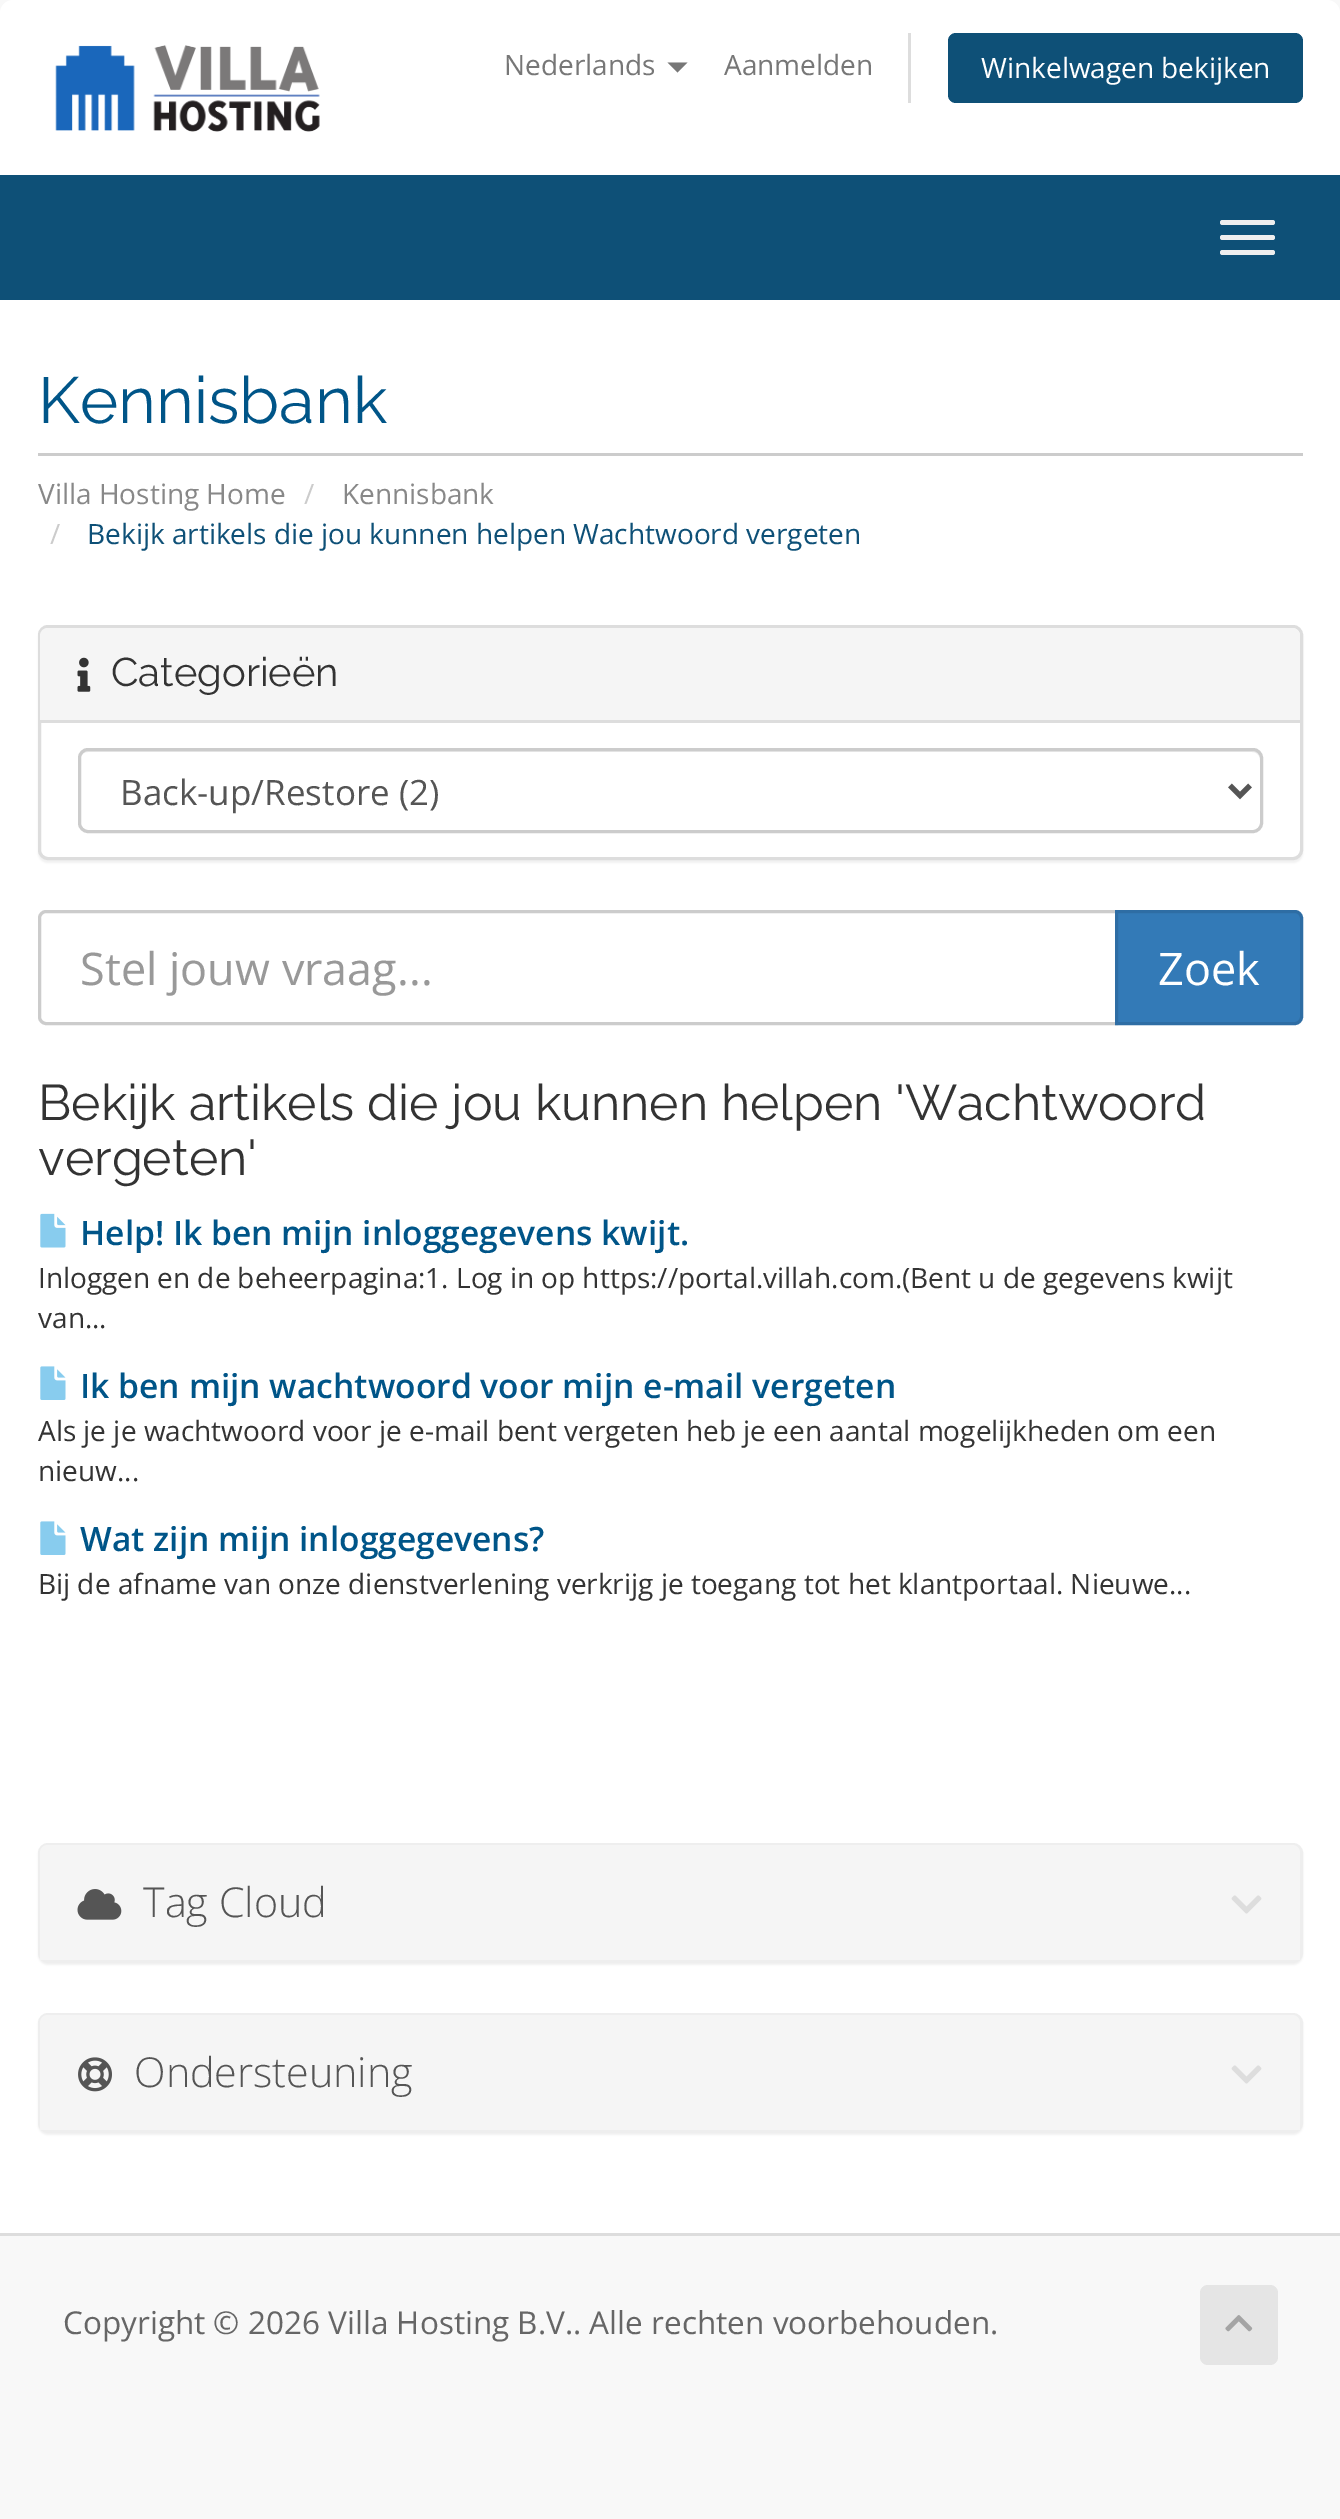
%!PS
<< /PageSize [1340 2519] /PageUsesTransparency true >> setpagedevice
/mt/moveto load def
/li/lineto load def
/ct/curveto load def
/cp/closepath load def
/fl/fill load def
/st/stroke load def
/gs/gsave load def
/gr/grestore load def
/lw/setlinewidth load def
/co { dup -16 bitshift 255 div exch dup -8 bitshift 255 and 255 div exch 255 and 255 div setrgbcolor } def
/fn { [ exch dup neg 0 0 3 -1 roll 0 0 ] selectfont } def
/tx { co fn moveto show } def
/bx { co rectfill } def
/al { dup .setfillconstantalpha .setstrokeconstantalpha } def
/rr { 5 dict begin { /r /h /w /y /x } { exch def } forall
  x r add y moveto x w add y 2 copy h add r arct x w add y h add x 1 index r arct
  x y h add x y r arct x y 2 copy exch w add exch r arct closepath end } def
/sh { 12 dict begin { /a /b /q /h /w /y /x } { exch def } forall gsave /was 0 def
  9 -2 -9 { dup b mul 4 div /e exch def 1 sub .425 mul 2.718 exch exp 1 add a .99 .min exch div /now exch def
    1 1 now sub 1 was sub div sub al /was now def
    w h .min e 2 mul add 0 gt { x e sub y e sub w e 2 mul add h e 2 mul add
      q e add b .6 mul add w h .min 2 div e add .min 0 .max rr fill } if } for grestore end } def
/im { 5 dict begin { /h /w /y /x /name } { exch def } forall
  gsave x y translate w h scale
  w h 8 [w 0 0 h 0 0] name (r) file false 3 colorimage grestore end } def
0 .pushpdf14devicefilter
0 2519 translate 1 -1 scale
4 setmiterlimit
0 0 1340 2519 16#F8F8F8 bx
16#FFFFFF co
13 0 mt 1327 0 li 1334 0 1340 6 1340 13 ct 1340 175 li 0 175 li 0 13 li 0 6 6 0 13 0 ct cp fl
(media/1.raw) 55 45 265 87 im
16#777777 co
667.5 62.5 mt 687.5 62.5 li 677.5 72.5 li cp fl
908 33 3 70 16#DDDDDD bx
16#0E5077 co
948 33 355 70 8 rr fl
0 175 1340 125 16#0E5077 bx
16#EEEEEE co
1220 220 55 5 2.5 rr fl
1220 235 55 5 2.5 rr fl
1220 250 55 5 2.5 rr fl
0 300 1340 1933 16#FFFFFF bx
38 453 1265 3 16#CCCCCC bx
16#000000 co
38 628 1265 235 10 1 .05 sh
16#FFFFFF co
39.5 626.5 1262 232 8.5 rr gs fl gr
16#DDDDDD co
3 lw
st
16#F5F5F5 co
48 628 mt 1292 628 li 1296.5 628 1300 631.5 1300 636 ct 1300 723 li 40 723 li 40 636 li 40 631.5 43.5 628 48 628 ct cp fl
40 720 1260 3 16#DDDDDD bx
(media/2.raw) 77 657 14 35 im
16#ECECEC co
88 752 mt 1252 752 li 1257 752 1260 756 1260 760 ct 1260 758 li 1260 754 1256 750 1252 750 ct 88 750 li 84 750 80 754 80 758 ct 80 760 li 80 756 83 752 88 752 ct cp fl
16#CCCCCC co
79.5 749.5 1182 82 8.5 rr st
16#555555 co
5 lw
1230 785.5 mt 1240 795.5 li 1250 785.5 li st
16#CCCCCC co
3 lw
46 911.5 mt 1116.5 911.5 li 1116.5 1023.5 li 46 1023.5 li 42.5 1023.5 39.5 1020.5 39.5 1017 ct 39.5 918 li 39.5 914.5 42.5 911.5 46 911.5 ct cp st
16#337AB7 co
1116.5 911.5 mt 1295 911.5 li 1298.5 911.5 1301.5 914.5 1301.5 918 ct 1301.5 1017 li 1301.5 1020.5 1298.5 1023.5 1295 1023.5 ct 1116.5 1023.5 li cp gs fl gr
16#2E6DA4 co
st
(media/3.raw) 40 1213 26 35 im
(media/4.raw) 40 1366 26 34 im
(media/4.raw) 40 1521 26 34 im
16#000000 co
38 1845 1265 120 10 1 .05 sh
16#EEEEEE co
39.5 1844.5 1262 117 8.5 rr st
16#F5F5F5 co
48 1845 mt 1292 1845 li 1296.5 1845 1300 1848.5 1300 1853 ct 1300 1960 li 40 1960 li 40 1853 li 40 1848.5 43.5 1845 48 1845 ct cp fl
(media/5.raw) 77 1889 45 31 im
(media/6.raw) 1231 1895 31 19 im
16#000000 co
38 2015 1265 120 10 1 .05 sh
16#EEEEEE co
39.5 2014.5 1262 117 8.5 rr st
16#F5F5F5 co
48 2015 mt 1292 2015 li 1296.5 2015 1300 2018.5 1300 2023 ct 1300 2130 li 40 2130 li 40 2023 li 40 2018.5 43.5 2015 48 2015 ct cp fl
(media/7.raw) 78 2057 34 35 im
(media/6.raw) 1231 2065 31 19 im
0 2233 1340 3 16#DDDDDD bx
16#E5E5E5 co
1200 2285 78 80 8 rr fl
(media/8.raw) 1225 2315 28 17 im
(Nederlands) 504 75 /OpenSans-Regular 28 16#777777 tx
(Aanmelden) 724 75 /OpenSans-Regular 28 16#777777 tx
(Winkelwagen bekijken) 981 78 /OpenSans-Regular 28 16#FFFFFF tx
(Kennisbank) 38 423 /Raleway-Regular 65 16#005588 tx
(Villa Hosting Home) 38 504 /OpenSans-Regular 28 16#888888 tx
(/) 304 504 /OpenSans-Regular 28 16#CCCCCC tx
(Kennisbank) 342 504 /OpenSans-Regular 28 16#888888 tx
(/) 50 544 /OpenSans-Regular 28 16#CCCCCC tx
(Bekijk artikels die jou kunnen helpen Wachtwoord vergeten) 87 544 /OpenSans-Regular 28 16#0E5077 tx
(Categorieën) 111 686 /Raleway-Regular 40 16#333333 tx
(Back-up/Restore \(2\)) 120 805 /OpenSans-Regular 35 16#555555 tx
(Stel jouw vraag...) 80 985 /OpenSans-Regular 45 16#999999 tx
(Zoek) 1158 985 /OpenSans-Regular 45 16#FFFFFF tx
(Bekijk artikels die jou kunnen helpen 'Wachtwoord) 38 1120 /Raleway-Regular 50 16#333333 tx
(vergeten') 38 1175 /Raleway-Regular 50 16#333333 tx
(Help! Ik ben mijn inloggegevens kwijt.) 80 1245 /OpenSans-SemiBold 33.6 16#005588 tx
/OpenSans-Regular 28 fn
16#333333 co
38 1288 mt -.1 0 32 (Inloggen en de beheerpagina:1. Log in op https://portal.villah.com.\(Bent u de gegevens kwijt) widthshow
(van...) 38 1328 /OpenSans-Regular 28 16#333333 tx
(Ik ben mijn wachtwoord voor mijn e-mail vergeten) 80 1398 /OpenSans-SemiBold 33.6 16#005588 tx
(Als je je wachtwoord voor je e-mail bent vergeten heb je een aantal mogelijkheden om een) 38 1441 /OpenSans-Regular 28 16#333333 tx
(nieuw...) 38 1481 /OpenSans-Regular 28 16#333333 tx
(Wat zijn mijn inloggegevens?) 80 1551 /OpenSans-SemiBold 33.6 16#005588 tx
(Bij de afname van onze dienstverlening verkrijg je toegang tot het klantportaal. Nieuwe...) 38 1594 /OpenSans-Regular 28 16#333333 tx
(Tag Cloud) 143 1917 /OpenSans-Light 41.25 16#555555 tx
(Ondersteuning) 134 2087 /OpenSans-Light 41.25 16#555555 tx
(Copyright © 2026 Villa Hosting B.V.. Alle rechten voorbehouden.) 63 2334 /OpenSans-Regular 31.5 16#666666 tx
.poppdf14devicefilter showpage
